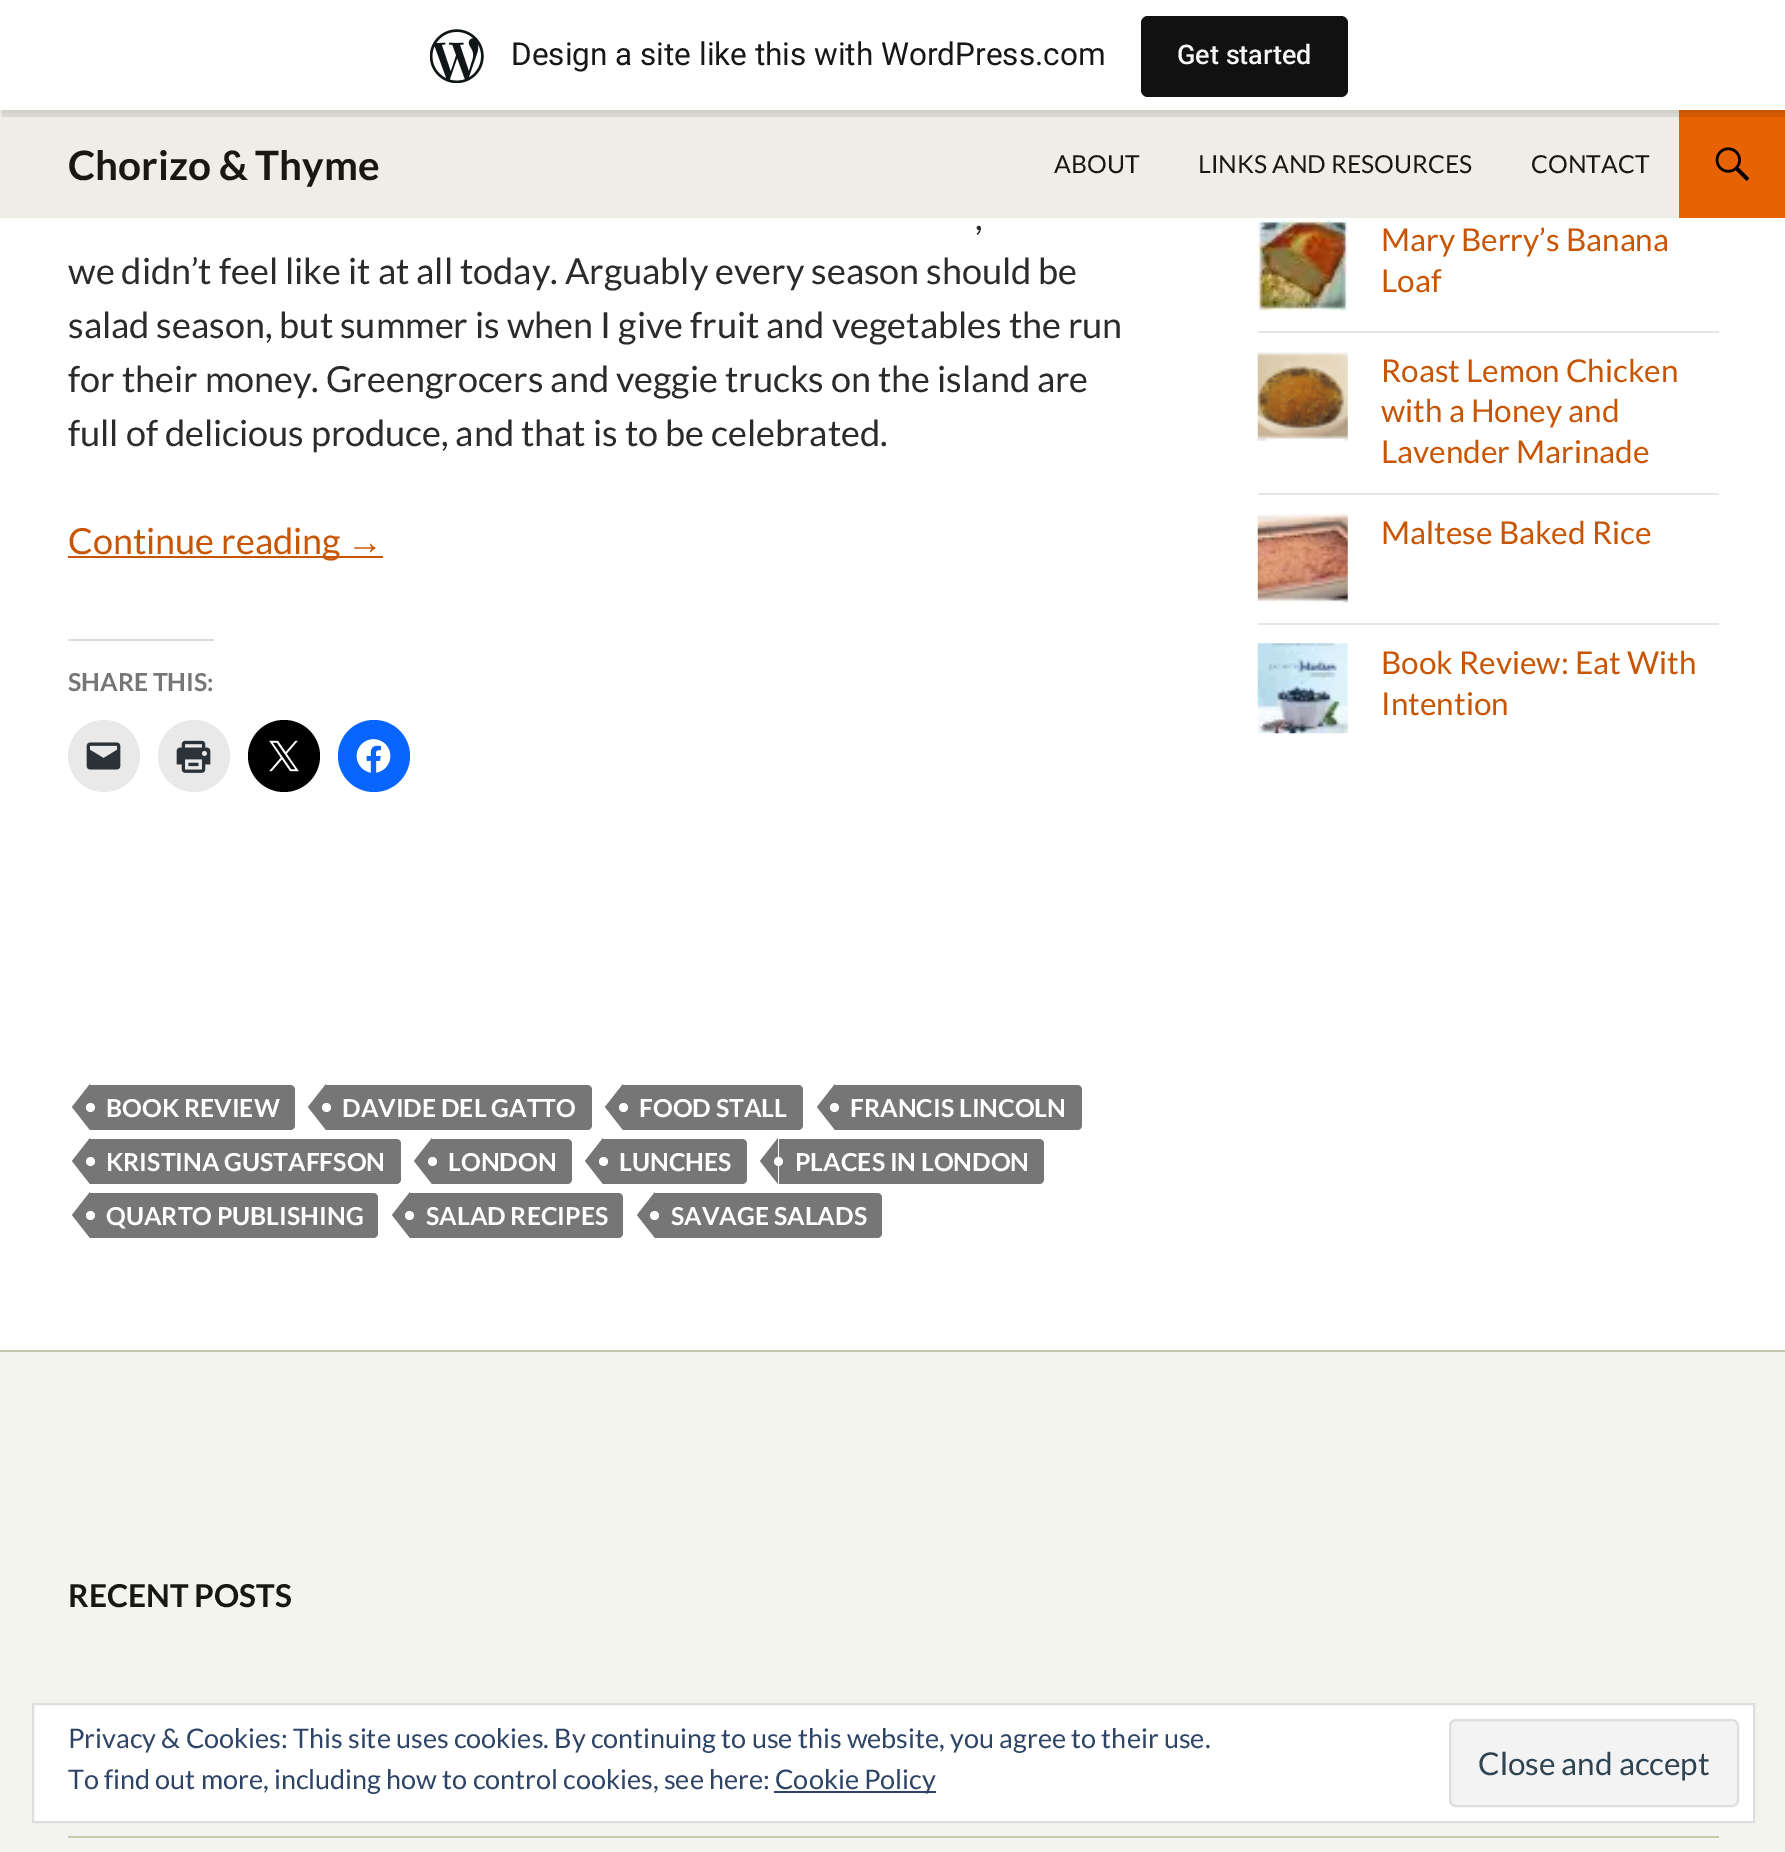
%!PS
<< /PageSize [1785 1852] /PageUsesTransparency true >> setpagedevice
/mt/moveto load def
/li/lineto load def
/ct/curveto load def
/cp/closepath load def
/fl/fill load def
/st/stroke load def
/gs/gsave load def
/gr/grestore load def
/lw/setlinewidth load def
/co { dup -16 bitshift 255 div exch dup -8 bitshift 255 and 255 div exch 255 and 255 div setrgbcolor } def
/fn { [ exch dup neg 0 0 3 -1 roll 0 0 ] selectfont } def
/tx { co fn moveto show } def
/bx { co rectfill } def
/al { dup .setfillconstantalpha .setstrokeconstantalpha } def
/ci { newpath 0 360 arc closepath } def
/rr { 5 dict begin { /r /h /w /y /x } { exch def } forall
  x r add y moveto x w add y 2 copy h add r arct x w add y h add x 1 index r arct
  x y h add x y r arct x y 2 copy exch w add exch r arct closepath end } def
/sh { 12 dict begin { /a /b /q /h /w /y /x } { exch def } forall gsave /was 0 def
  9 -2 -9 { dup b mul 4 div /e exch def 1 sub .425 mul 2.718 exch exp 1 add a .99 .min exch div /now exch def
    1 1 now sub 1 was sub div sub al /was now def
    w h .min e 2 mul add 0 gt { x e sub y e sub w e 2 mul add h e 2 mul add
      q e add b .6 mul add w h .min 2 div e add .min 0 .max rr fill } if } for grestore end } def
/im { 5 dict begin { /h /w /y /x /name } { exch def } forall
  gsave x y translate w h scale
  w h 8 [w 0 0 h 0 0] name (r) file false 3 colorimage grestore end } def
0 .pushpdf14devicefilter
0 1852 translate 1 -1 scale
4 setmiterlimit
0 0 1785 1852 16#FFFFFF bx
0 110 1679 108 16#EEEEE6 bx
1679 110 106 108 16#E76203 bx
16#000000 co
0 2 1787 111 0 2 .05 sh
0.08 al
2 110 mt 2 117 li 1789 117 li 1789 7 li 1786 7 li 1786 110 li cp fl
1 al
0 0 1785 110 16#FFFFFF bx
(media/1.raw) 430 29 54 54 im
16#111111 co
1141 16 207 81 7 rr fl
(media/2.raw) 1715 147 35 34 im
68 556 315 2 16#C85503 bx
68 639 146 2 16#DCDCDE bx
16#E9E9E9 co
104 756 36 ci fl
(media/3.raw) 86 742 35 28 im
194 756 36 ci fl
(media/4.raw) 176 740 35 33 im
16#000000 co
284 756 36 ci fl
(media/5.raw) 269 740 30 32 im
16#0866FF co
374 756 36 ci fl
(media/6.raw) 356 739 35 34 im
16#767676 co
90 1085 mt 290 1085 li 293 1085 295 1087 295 1090 ct 295 1125 li 295 1128 293 1130 290 1130 ct 90 1130 li cp fl
90 1084 mt 90 1130 li 72 1107 li cp fl
16#FFFFFF co
90.5 1107.5 4.5 ci fl
16#767676 co
326 1085 mt 587 1085 li 590 1085 592 1087 592 1090 ct 592 1125 li 592 1128 590 1130 587 1130 ct 326 1130 li cp fl
326 1084 mt 326 1130 li 308 1107 li cp fl
16#FFFFFF co
326.5 1107.5 4.5 ci fl
16#767676 co
623 1085 mt 798 1085 li 801 1085 803 1087 803 1090 ct 803 1125 li 803 1128 801 1130 798 1130 ct 623 1130 li cp fl
623 1084 mt 623 1130 li 605 1107 li cp fl
16#FFFFFF co
623.5 1107.5 4.5 ci fl
16#767676 co
835 1085 mt 1077 1085 li 1080 1085 1082 1087 1082 1090 ct 1082 1125 li 1082 1128 1080 1130 1077 1130 ct 835 1130 li cp fl
835 1084 mt 835 1130 li 817 1107 li cp fl
16#FFFFFF co
834.5 1107.5 4.5 ci fl
16#767676 co
90 1139 mt 396 1139 li 399 1139 401 1141 401 1144 ct 401 1179 li 401 1182 399 1184 396 1184 ct 90 1184 li cp fl
90 1138 mt 90 1184 li 72 1161 li cp fl
16#FFFFFF co
90.5 1161.5 4.5 ci fl
16#767676 co
432 1139 mt 567 1139 li 570 1139 572 1141 572 1144 ct 572 1179 li 572 1182 570 1184 567 1184 ct 432 1184 li cp fl
432 1138 mt 432 1184 li 414 1161 li cp fl
16#FFFFFF co
432.5 1161.5 4.5 ci fl
16#767676 co
603 1139 mt 742 1139 li 745 1139 747 1141 747 1144 ct 747 1179 li 747 1182 745 1184 742 1184 ct 603 1184 li cp fl
603 1138 mt 603 1184 li 585 1161 li cp fl
16#FFFFFF co
603.5 1161.5 4.5 ci fl
16#767676 co
779 1139 mt 1039 1139 li 1042 1139 1044 1141 1044 1144 ct 1044 1179 li 1044 1182 1042 1184 1039 1184 ct 779 1184 li cp fl
778 1138 mt 778 1184 li 760 1161 li cp fl
16#FFFFFF co
778.5 1161.5 4.5 ci fl
16#767676 co
90 1193 mt 373 1193 li 376 1193 378 1195 378 1198 ct 378 1233 li 378 1236 376 1238 373 1238 ct 90 1238 li cp fl
90 1192 mt 90 1238 li 72 1215 li cp fl
16#FFFFFF co
90.5 1215.5 4.5 ci fl
16#767676 co
410 1193 mt 618 1193 li 621 1193 623 1195 623 1198 ct 623 1233 li 623 1236 621 1238 618 1238 ct 410 1238 li cp fl
410 1192 mt 410 1238 li 392 1215 li cp fl
16#FFFFFF co
409.5 1215.5 4.5 ci fl
16#767676 co
655 1193 mt 877 1193 li 880 1193 882 1195 882 1198 ct 882 1233 li 882 1236 880 1238 877 1238 ct 655 1238 li cp fl
655 1192 mt 655 1238 li 637 1215 li cp fl
16#FFFFFF co
654.5 1215.5 4.5 ci fl
(media/7.raw) 1257 220 91 91 im
1258 331 461 2 16#E6E6E6 bx
(media/8.raw) 1257 352 91 89 im
1258 493 461 2 16#E6E6E6 bx
(media/9.raw) 1257 513 91 90 im
1258 623 461 2 16#E6E6E6 bx
(media/10.raw) 1257 643 91 91 im
0 1352 1785 500 16#F4F4EF bx
0 1350 1785 2 16#C9C9B0 bx
68 1836 1651 2 16#C9C9B0 bx
16#FFFFFF co
33 1704 mt 1754 1704 li 1754 1822 li 33 1822 li cp gs fl gr
16#DEDEDE co
2 lw
st
774 1791 162 2 16#2E4467 bx
16#F3F3F3 co
1450 1720 288 86 6 rr gs fl gr
16#DEDEDE co
st
(Design a site like this with WordPress.com) 511 65 /Roboto-Regular 31.5 16#171717 tx
(Get started) 1177 64 /Roboto-Medium 27 16#F6F7F7 tx
(Chorizo & Thyme) 68 180 /Lato-Bold 40.5 16#181810 tx
(ABOUT) 1054 173 /Lato-Regular 24.75 16#181810 tx
(LINKS AND RESOURCES) 1198 173 /Lato-Regular 24.75 16#181810 tx
(CONTACT) 1531 173 /Lato-Regular 24.75 16#181810 tx
(,) 975 230 /Lato-Regular 36 16#2B2B2B tx
(we didn’t feel like it at all today. Arguably every season should be) 68 284 /Lato-Regular 36 16#2B2B2B tx
(salad season, but summer is when I give fruit and vegetables the run) 68 338 /Lato-Regular 36 16#2B2B2B tx
(for their money. Greengrocers and veggie trucks on the island are) 68 392 /Lato-Regular 36 16#2B2B2B tx
(full of delicious produce, and that is to be celebrated.) 68 446 /Lato-Regular 36 16#2B2B2B tx
(Continue reading) 68 554 /Lato-Regular 36 16#C85503 tx
(→) 347 554 /LiberationSans-Regular 36 16#C85503 tx
(SHARE THIS:) 68 691 /Lato-Bold 24.75 16#767676 tx
(BOOK REVIEW) 106 1117 /Lato-Bold 24.75 16#FFFFFF tx
(DAVIDE DEL GATTO) 342 1117 /Lato-Bold 24.75 16#FFFFFF tx
(FOOD STALL) 639 1117 /Lato-Bold 24.75 16#FFFFFF tx
(FRANCIS LINCOLN) 850 1117 /Lato-Bold 24.75 16#FFFFFF tx
(KRISTINA GUSTAFFSON) 106 1171 /Lato-Bold 24.75 16#FFFFFF tx
(LONDON) 448 1171 /Lato-Bold 24.75 16#FFFFFF tx
(LUNCHES) 619 1171 /Lato-Bold 24.75 16#FFFFFF tx
(PLACES IN LONDON) 795 1171 /Lato-Bold 24.75 16#FFFFFF tx
(QUARTO PUBLISHING) 106 1225 /Lato-Bold 24.75 16#FFFFFF tx
(SALAD RECIPES) 426 1225 /Lato-Bold 24.75 16#FFFFFF tx
(SAVAGE SALADS) 671 1225 /Lato-Bold 24.75 16#FFFFFF tx
(Mary Berry’s Banana) 1381 251 /Lato-Regular 31.5 16#C85503 tx
(Loaf) 1381 292 /Lato-Regular 31.5 16#C85503 tx
(Roast Lemon Chicken) 1381 382 /Lato-Regular 31.5 16#C85503 tx
(with a Honey and) 1381 422 /Lato-Regular 31.5 16#C85503 tx
(Lavender Marinade) 1381 463 /Lato-Regular 31.5 16#C85503 tx
(Maltese Baked Rice) 1381 544 /Lato-Regular 31.5 16#C85503 tx
(Book Review: Eat With) 1381 674 /Lato-Regular 31.5 16#C85503 tx
(Intention) 1381 715 /Lato-Regular 31.5 16#C85503 tx
(RECENT POSTS) 68 1607 /Lato-Bold 31.5 16#181810 tx
(Privacy & Cookies: This site uses cookies. By continuing to use this website, you agree to their use.) 68 1748 /Lato-Regular 27 16#2E4467 tx
(To find out more, including how to control cookies, see here:) 68 1789 /Lato-Regular 27 16#2E4467 tx
(Cookie Policy) 775 1789 /Lato-Regular 27 16#2E4467 tx
(Close and accept) 1478 1775 /Lato-Regular 31.5 16#2E4453 tx
.poppdf14devicefilter showpage
